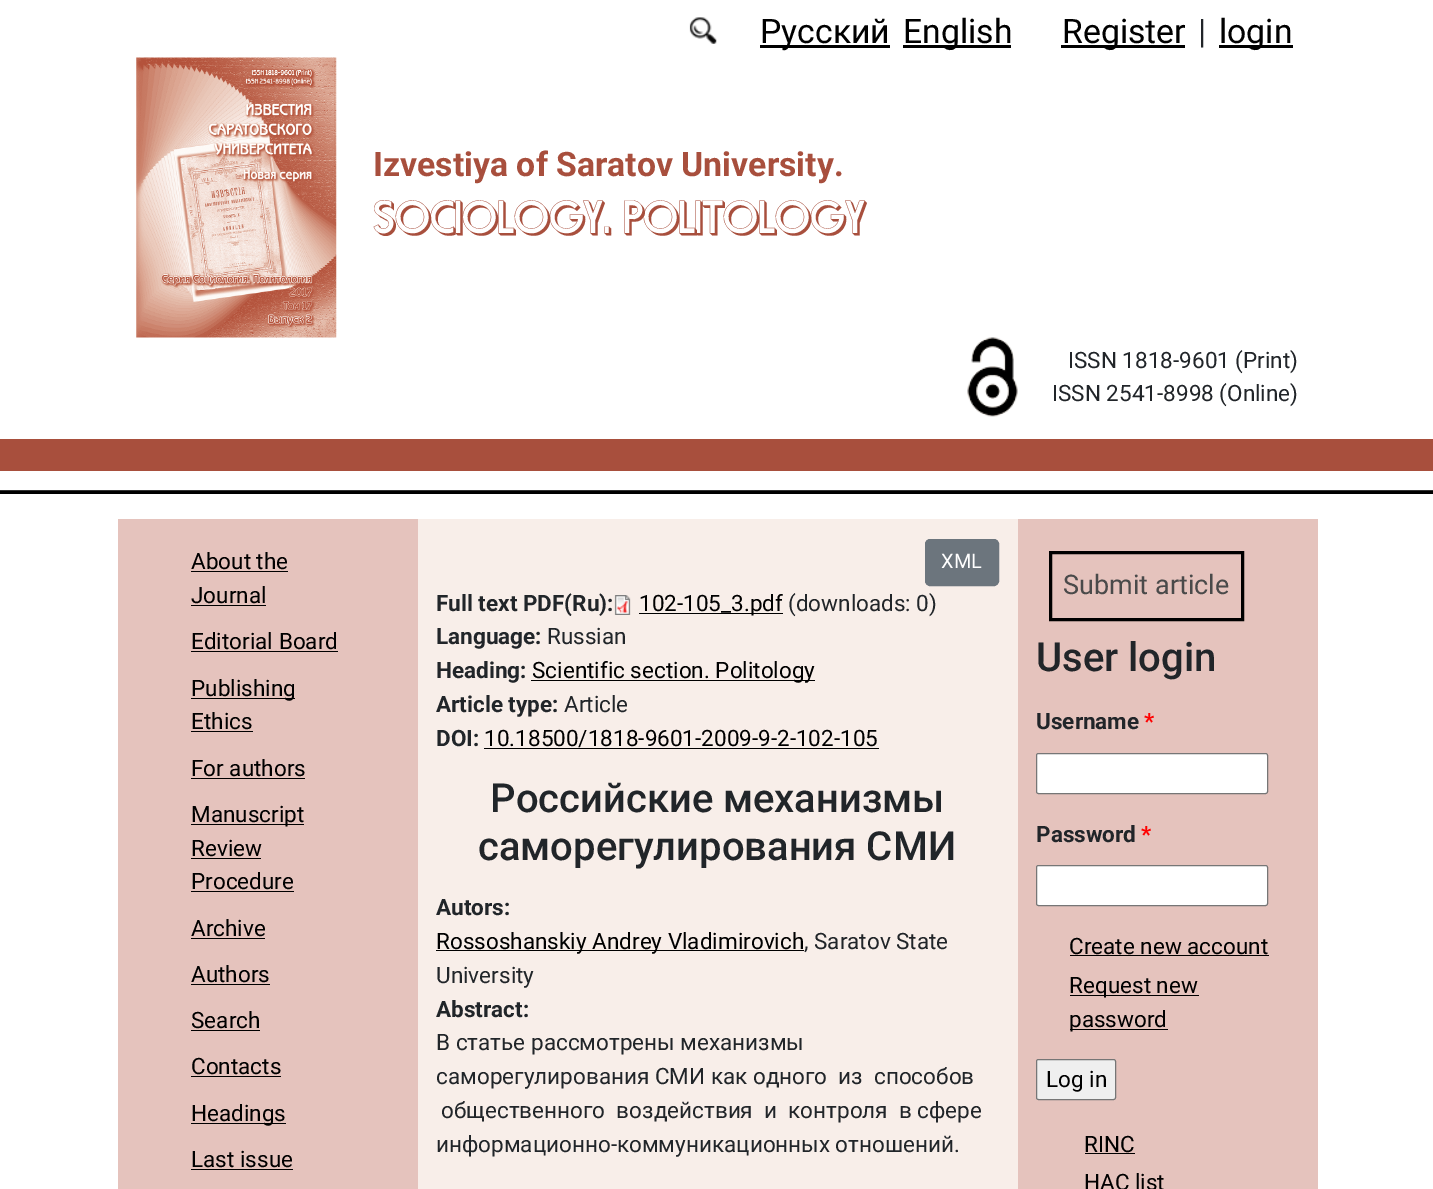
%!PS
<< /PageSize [1433 1189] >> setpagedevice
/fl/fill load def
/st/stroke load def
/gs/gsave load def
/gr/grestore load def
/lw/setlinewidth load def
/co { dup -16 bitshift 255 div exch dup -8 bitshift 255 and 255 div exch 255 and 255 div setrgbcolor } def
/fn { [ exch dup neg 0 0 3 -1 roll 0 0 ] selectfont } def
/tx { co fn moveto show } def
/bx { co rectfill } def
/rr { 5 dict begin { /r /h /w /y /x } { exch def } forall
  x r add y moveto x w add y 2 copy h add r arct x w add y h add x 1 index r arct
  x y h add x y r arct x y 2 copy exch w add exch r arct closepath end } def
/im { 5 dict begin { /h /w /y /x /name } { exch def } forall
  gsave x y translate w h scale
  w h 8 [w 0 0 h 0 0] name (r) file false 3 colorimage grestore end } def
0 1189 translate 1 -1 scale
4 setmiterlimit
0 0 1433 1189 16#FFFFFF bx
(media/1.raw) 689 17 28 27 im
760 45 130 3 16#000000 bx
903 45 108 3 16#000000 bx
1061 45 124 3 16#000000 bx
1219 45 74 3 16#000000 bx
(media/2.raw) 136 57 201 281 im
(media/3.raw) 967 337 51 80 im
0 439 1433 32 16#A84F3D bx
0 490 1433 1 16#333333 bx
0 491 1433 3 16#000000 bx
118 519 300 670 16#E5C3BD bx
191 571 97 1 16#000000 bx
191 605 75 1 16#000000 bx
191 651 147 1 16#000000 bx
191 698 104 1 16#000000 bx
191 731 62 1 16#000000 bx
191 778 114 1 16#000000 bx
191 824 113 1 16#000000 bx
191 858 70 1 16#000000 bx
191 891 103 1 16#000000 bx
191 938 74 1 16#000000 bx
191 984 79 1 16#000000 bx
191 1030 69 1 16#000000 bx
191 1076 90 1 16#000000 bx
191 1123 95 1 16#000000 bx
191 1169 102 1 16#000000 bx
418 519 600 670 16#F8EEE9 bx
16#6C757D co
925.5 539.5 73 46 4.5 rr gs fl gr
st
(media/4.raw) 614 595 17 20 im
639 613 144 1 16#000000 bx
531 680 284 1 16#000000 bx
484 748 395 1 16#000000 bx
436 950 368 1 16#000000 bx
1018 519 300 670 16#E5C3BD bx
16#000000 co
3 lw
1050.5 552.5 192 67 rectstroke
16#FFFFFF co
1036.5 753.5 231 40 2 rr gs fl gr
16#767676 co
1 lw
st
16#FFFFFF co
1036.5 865.5 231 40 2 rr gs fl gr
16#767676 co
st
1070 955 199 1 16#000000 bx
1070 995 129 1 16#000000 bx
1070 1029 98 1 16#000000 bx
16#EFEFEF co
1036.5 1059.5 79 40 2 rr gs fl gr
16#767676 co
st
1085 1153 50 1 16#000000 bx
(Русский) 760 43 /Roboto-Regular 33.75 16#000000 tx
(English) 903 43 /Roboto-Regular 33.75 16#000000 tx
(Register) 1062 43 /Roboto-Regular 33.75 16#000000 tx
(|) 1198 43 /Roboto-Regular 33.75 16#212529 tx
(login) 1219 43 /Roboto-Regular 33.75 16#000000 tx
(Izvestiya of Saratov University.) 373 176 /Roboto-Bold 33.75 16#A84F3D tx
(SOCIOLOGY. POLITOLOGY) 373 233 /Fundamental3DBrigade-Regular 45 16#A84F3D tx
(ISSN 1818-9601 \(Print\)) 1068 368 /Roboto-Regular 22.5 16#212529 tx
(ISSN 2541-8998 \(Online\)) 1052 401 /Roboto-Regular 22.5 16#212529 tx
(About the) 191 569 /Roboto-Regular 22.5 16#000000 tx
(Journal) 191 603 /Roboto-Regular 22.5 16#000000 tx
(Editorial Board) 191 649 /Roboto-Regular 22.5 16#000000 tx
(Publishing) 191 696 /Roboto-Regular 22.5 16#000000 tx
(Ethics) 191 729 /Roboto-Regular 22.5 16#000000 tx
(For authors) 191 776 /Roboto-Regular 22.5 16#000000 tx
(Manuscript) 191 822 /Roboto-Regular 22.5 16#000000 tx
(Review) 191 856 /Roboto-Regular 22.5 16#000000 tx
(Procedure) 191 889 /Roboto-Regular 22.5 16#000000 tx
(Archive) 191 936 /Roboto-Regular 22.5 16#000000 tx
(Authors) 191 982 /Roboto-Regular 22.5 16#000000 tx
(Search) 191 1028 /Roboto-Regular 22.5 16#000000 tx
(Contacts) 191 1074 /Roboto-Regular 22.5 16#000000 tx
(Headings) 191 1121 /Roboto-Regular 22.5 16#000000 tx
(Last issue) 191 1167 /Roboto-Regular 22.5 16#000000 tx
(XML) 941 568 /Roboto-Regular 20 16#FFFFFF tx
(Full text PDF\(Ru\):) 436 611 /Roboto-Bold 22.5 16#212529 tx
(102-105_3.pdf) 639 611 /Roboto-Regular 22.5 16#000000 tx
(\(downloads: 0\)) 788 611 /Roboto-Regular 22.5 16#212529 tx
(Language:) 436 644 /Roboto-Bold 22.5 16#212529 tx
(Russian) 547 644 /Roboto-Regular 22.5 16#212529 tx
(Heading:) 436 678 /Roboto-Bold 22.5 16#212529 tx
(Scientific section. Politology) 532 678 /Roboto-Regular 22.5 16#000000 tx
(Article type:) 436 712 /Roboto-Bold 22.5 16#212529 tx
(Article) 564 712 /Roboto-Regular 22.5 16#212529 tx
(DOI:) 436 746 /Roboto-Bold 22.5 16#212529 tx
(10.18500/1818-9601-2009-9-2-102-105) 484 746 /Roboto-Regular 22.5 16#000000 tx
(Российские механизмы) 490 812 /Roboto-Medium 40 16#212529 tx
(саморегулирования СМИ) 478 860 /Roboto-Medium 40 16#212529 tx
(Autors:) 436 915 /Roboto-Bold 22.5 16#212529 tx
(Rossoshanskiy Andrey Vladimirovich) 436 949 /Roboto-Regular 22.5 16#000000 tx
(, Saratov State) 804 949 /Roboto-Regular 22.5 16#212529 tx
(University) 436 983 /Roboto-Regular 22.5 16#212529 tx
(Abstract:) 436 1017 /Roboto-Bold 22.5 16#212529 tx
(В статье рассмотрены механизмы) 436 1050 /Roboto-Regular 22.5 16#212529 tx
(саморегулирования СМИ как одного  из  способов) 436 1084 /Roboto-Regular 22.5 16#212529 tx
(общественного  воздействия  и  контроля  в сфере) 441 1118 /Roboto-Regular 22.5 16#212529 tx
(информационно-коммуникационных отношений.) 436 1152 /Roboto-Regular 22.5 16#212529 tx
(Submit article) 1063 594 /Roboto-Regular 27 16#4A4A4A tx
(User login) 1036 671 /Roboto-Medium 40 16#212529 tx
(Username) 1036 729 /Roboto-Bold 22.5 16#212529 tx
(*) 1144 729 /Roboto-Bold 22.5 16#FF0000 tx
(Password) 1036 842 /Roboto-Bold 22.5 16#212529 tx
(*) 1141 842 /Roboto-Bold 22.5 16#FF0000 tx
(Create new account) 1069 954 /Roboto-Regular 22.5 16#000000 tx
(Request new) 1069 993 /Roboto-Regular 22.5 16#000000 tx
(password) 1069 1027 /Roboto-Regular 22.5 16#000000 tx
(Log in) 1046 1087 /Roboto-Regular 22.5 16#000000 tx
(RINC) 1084 1152 /Roboto-Regular 22.5 16#000000 tx
(HAC list) 1084 1190 /Roboto-Regular 22.5 16#000000 tx
showpage
